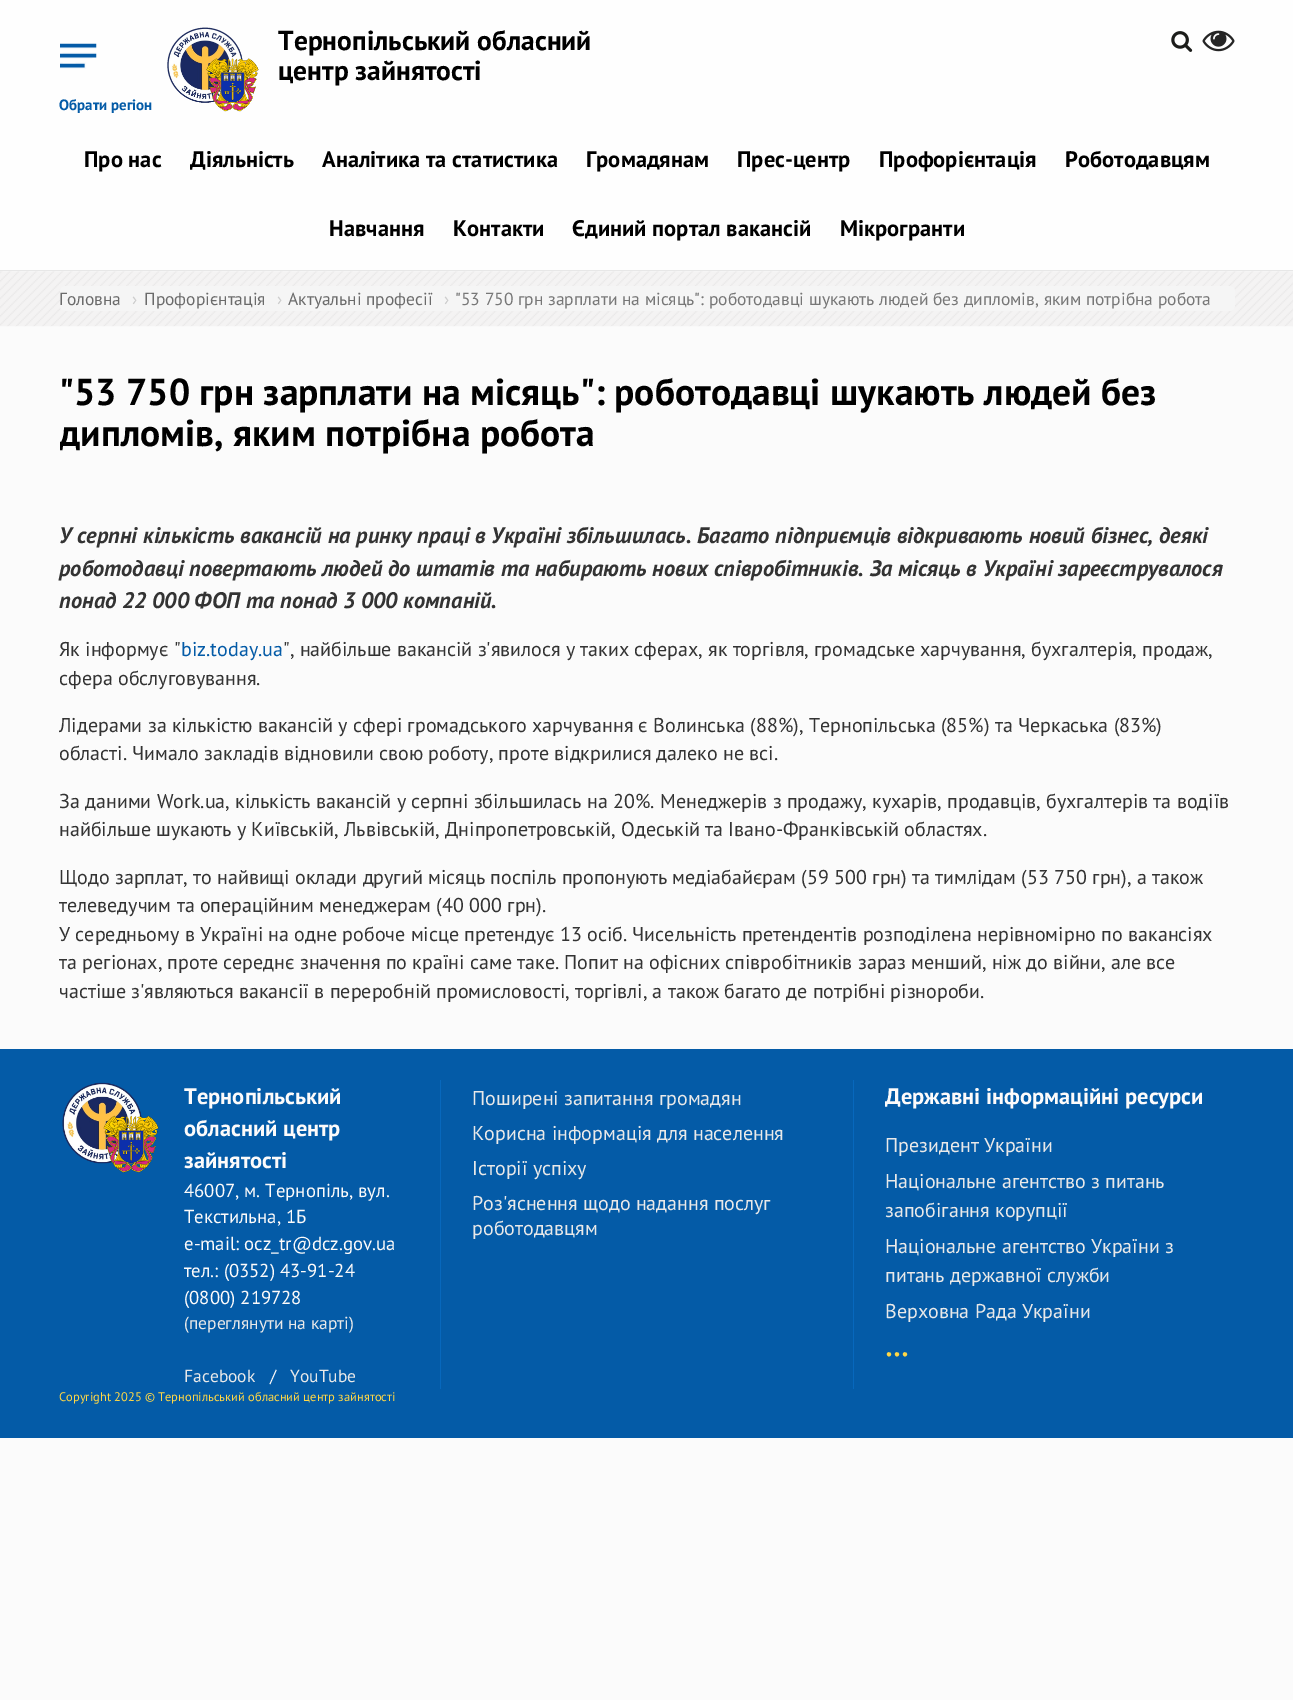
%!PS
<< /PageSize [1293 1700] >> setpagedevice
/fl/fill load def
/gs/gsave load def
/gr/grestore load def
/co { dup -16 bitshift 255 div exch dup -8 bitshift 255 and 255 div exch 255 and 255 div setrgbcolor } def
/fn { [ exch dup neg 0 0 3 -1 roll 0 0 ] selectfont } def
/tx { co fn moveto show } def
/bx { co rectfill } def
/rr { 5 dict begin { /r /h /w /y /x } { exch def } forall
  x r add y moveto x w add y 2 copy h add r arct x w add y h add x 1 index r arct
  x y h add x y r arct x y 2 copy exch w add exch r arct closepath end } def
/im { 5 dict begin { /h /w /y /x /name } { exch def } forall
  gsave x y translate w h scale
  w h 8 [w 0 0 h 0 0] name (r) file false 3 colorimage grestore end } def
0 1700 translate 1 -1 scale
4 setmiterlimit
0 0 1293 1700 16#FBFBFB bx
0 0 1293 270 16#FEFEFE bx
0 270 1293 1 16#E7E7E7 bx
(media/1.raw) 167 27 92 85 im
(media/2.raw) 1171 31 22 21 im
(media/3.raw) 1202 30 33 22 im
(media/4.raw) 60 43 37 26 im
(media/5.raw) 0 271 1293 56 im
16#F5F5F5 co
60 286 1175 25 5 rr fl
0 1049 1293 389 16#045BA7 bx
440 1080 1 309 16#0768BD bx
(media/6.raw) 62 1082 97 91 im
853 1080 1 309 16#0768BD bx
(Тернопільський обласний) 278 50 /PTSans-Bold 27.5 16#000000 tx
(центр зайнятості) 278 80 /PTSans-Bold 27.5 16#000000 tx
(Обрати регіон) 59 110 /PTSans-Bold 15 16#045BA7 tx
(Про нас) 84 167 /PTSans-Bold 22.5 16#000000 tx
(Діяльність) 190 167 /PTSans-Bold 22.5 16#000000 tx
(Аналітика та статистика) 322 167 /PTSans-Bold 22.5 16#000000 tx
(Громадянам) 586 167 /PTSans-Bold 22.5 16#000000 tx
(Прес-центр) 737 167 /PTSans-Bold 22.5 16#000000 tx
(Профорієнтація) 879 167 /PTSans-Bold 22.5 16#000000 tx
(Роботодавцям) 1065 167 /PTSans-Bold 22.5 16#000000 tx
(Навчання) 329 236 /PTSans-Bold 22.5 16#000000 tx
(Контакти) 453 236 /PTSans-Bold 22.5 16#000000 tx
(Єдиний портал вакансій) 572 236 /PTSans-Bold 22.5 16#000000 tx
(Мікрогранти) 840 236 /PTSans-Bold 22.5 16#000000 tx
(Головна) 59 305 /PTSans-Regular 17.5 16#6B6B6B tx
(›) 132 305 /PTSans-Regular 17.5 16#CCCCCC tx
(Профорієнтація) 144 305 /PTSans-Regular 17.5 16#6B6B6B tx
(›) 277 305 /PTSans-Regular 17.5 16#CCCCCC tx
(Актуальні професії) 288 305 /PTSans-Regular 17.5 16#6B6B6B tx
(›) 444 305 /PTSans-Regular 17.5 16#CCCCCC tx
("53 750 грн зарплати на місяць": роботодавці шукають людей без дипломів, яким потрібна робота) 455 305 /PTSans-Regular 17.5 16#777777 tx
("53 750 грн зарплати на місяць": роботодавці шукають людей без) 59 405 /PTSans-Bold 37.5 16#000000 tx
gs
60 370 1175 119 rectclip
(дипломів, яким потрібна робота) 59 446 /PTSans-Bold 37.5 16#000000 tx
gr
(У серпні кількість вакансій на ринку праці в Україні збільшилась. Багато підприємців відкривають новий бізнес, деякі) 59 543 /PTSans-BoldItalic 22.5 16#333333 tx
(роботодавці повертають людей до штатів та набирають нових співробітників. За місяць в Україні зареєструвалося) 59 576 /PTSans-BoldItalic 22.5 16#333333 tx
(понад 22 000 ФОП та понад 3 000 компаній.) 59 608 /PTSans-BoldItalic 22.5 16#333333 tx
(Як інформує ") 59 656 /PTSans-Regular 20 16#333333 tx
(biz.today.ua) 181 656 /PTSans-Regular 20 16#045BA7 tx
(", найбільше вакансій з'явилося у таких сферах, як торгівля, громадське харчування, бухгалтерія, продаж,) 283 656 /PTSans-Regular 20 16#333333 tx
(сфера обслуговування.) 59 685 /PTSans-Regular 20 16#333333 tx
(Лідерами за кількістю вакансій у сфері громадського харчування є Волинська \(88%\), Тернопільська \(85%\) та Черкаська \(83%\)) 59 732 /PTSans-Regular 20 16#333333 tx
(області. Чимало закладів відновили свою роботу, проте відкрилися далеко не всі.) 59 760 /PTSans-Regular 20 16#333333 tx
(За даними Work.ua, кількість вакансій у серпні збільшилась на 20%. Менеджерів з продажу, кухарів, продавців, бухгалтерів та водіїв) 59 808 /PTSans-Regular 20 16#333333 tx
(найбільше шукають у Київській, Львівській, Дніпропетровській, Одеській та Івано-Франківській областях.) 59 836 /PTSans-Regular 20 16#333333 tx
(Щодо зарплат, то найвищі оклади другий місяць поспіль пропонують медіабайєрам \(59 500 грн\) та тимлідам \(53 750 грн\), а також) 59 884 /PTSans-Regular 20 16#333333 tx
(телеведучим та операційним менеджерам \(40 000 грн\).) 59 912 /PTSans-Regular 20 16#333333 tx
(У середньому в Україні на одне робоче місце претендує 13 осіб. Чисельність претендентів розподілена нерівномірно по вакансіях) 59 941 /PTSans-Regular 20 16#333333 tx
(та регіонах, проте середнє значення по країні саме таке. Попит на офісних співробітників зараз менший, ніж до війни, але все) 59 969 /PTSans-Regular 20 16#333333 tx
(частіше з'являються вакансії в переробній промисловості, торгівлі, а також багато де потрібні різнороби.) 59 998 /PTSans-Regular 20 16#333333 tx
(Тернопільський) 184 1104 /PTSans-Bold 22.5 16#FDFBFB tx
(обласний центр) 184 1136 /PTSans-Bold 22.5 16#FDFBFB tx
(зайнятості) 184 1168 /PTSans-Bold 22.5 16#FDFBFB tx
(46007, м. Тернопіль, вул.) 184 1197 /PTSans-Regular 18.75 16#FDFBFB tx
(Текстильна, 1Б) 184 1223 /PTSans-Regular 18.75 16#FDFBFB tx
(e-mail: ocz_tr@dcz.gov.ua) 184 1250 /PTSans-Regular 18.75 16#FDFBFB tx
(тел.: \(0352\) 43-91-24) 184 1277 /PTSans-Regular 18.75 16#FDFBFB tx
(\(0800\) 219728) 184 1304 /PTSans-Regular 18.75 16#FDFBFB tx
(\(переглянути на карті\)) 184 1329 /PTSans-Regular 17.5 16#E9E9E9 tx
(Facebook) 184 1382 /PTSans-Regular 17.5 16#E9E9E9 tx
(/) 270 1382 /PTSans-Regular 17.5 16#FDFBFB tx
(YouTube) 290 1382 /PTSans-Regular 17.5 16#E9E9E9 tx
(Поширені запитання громадян) 472 1105 /PTSans-Regular 20 16#E9E9E9 tx
(Корисна інформація для населення) 472 1140 /PTSans-Regular 20 16#E9E9E9 tx
(Історії успіху) 472 1175 /PTSans-Regular 20 16#E9E9E9 tx
(Роз'яснення щодо надання послуг) 472 1210 /PTSans-Regular 20 16#E9E9E9 tx
(роботодавцям) 472 1235 /PTSans-Regular 20 16#E9E9E9 tx
(Державні інформаційні ресурси) 885 1104 /PTSans-Bold 22.5 16#FDFBFB tx
(Президент України) 885 1152 /PTSans-Regular 20 16#E9E9E9 tx
(Національне агентство з питань) 885 1188 /PTSans-Regular 20 16#E9E9E9 tx
(запобігання корупції) 885 1217 /PTSans-Regular 20 16#E9E9E9 tx
(Національне агентство України з) 885 1253 /PTSans-Regular 20 16#E9E9E9 tx
(питань державної служби) 885 1282 /PTSans-Regular 20 16#E9E9E9 tx
(Верховна Рада України) 885 1318 /PTSans-Regular 20 16#E9E9E9 tx
(...) 885 1356 /PTSans-Regular 37.5 16#FFD746 tx
(Copyright 2025 © Тернопільський обласний центр зайнятості) 59 1401 /PTSans-Regular 12.5 16#FFD746 tx
showpage
